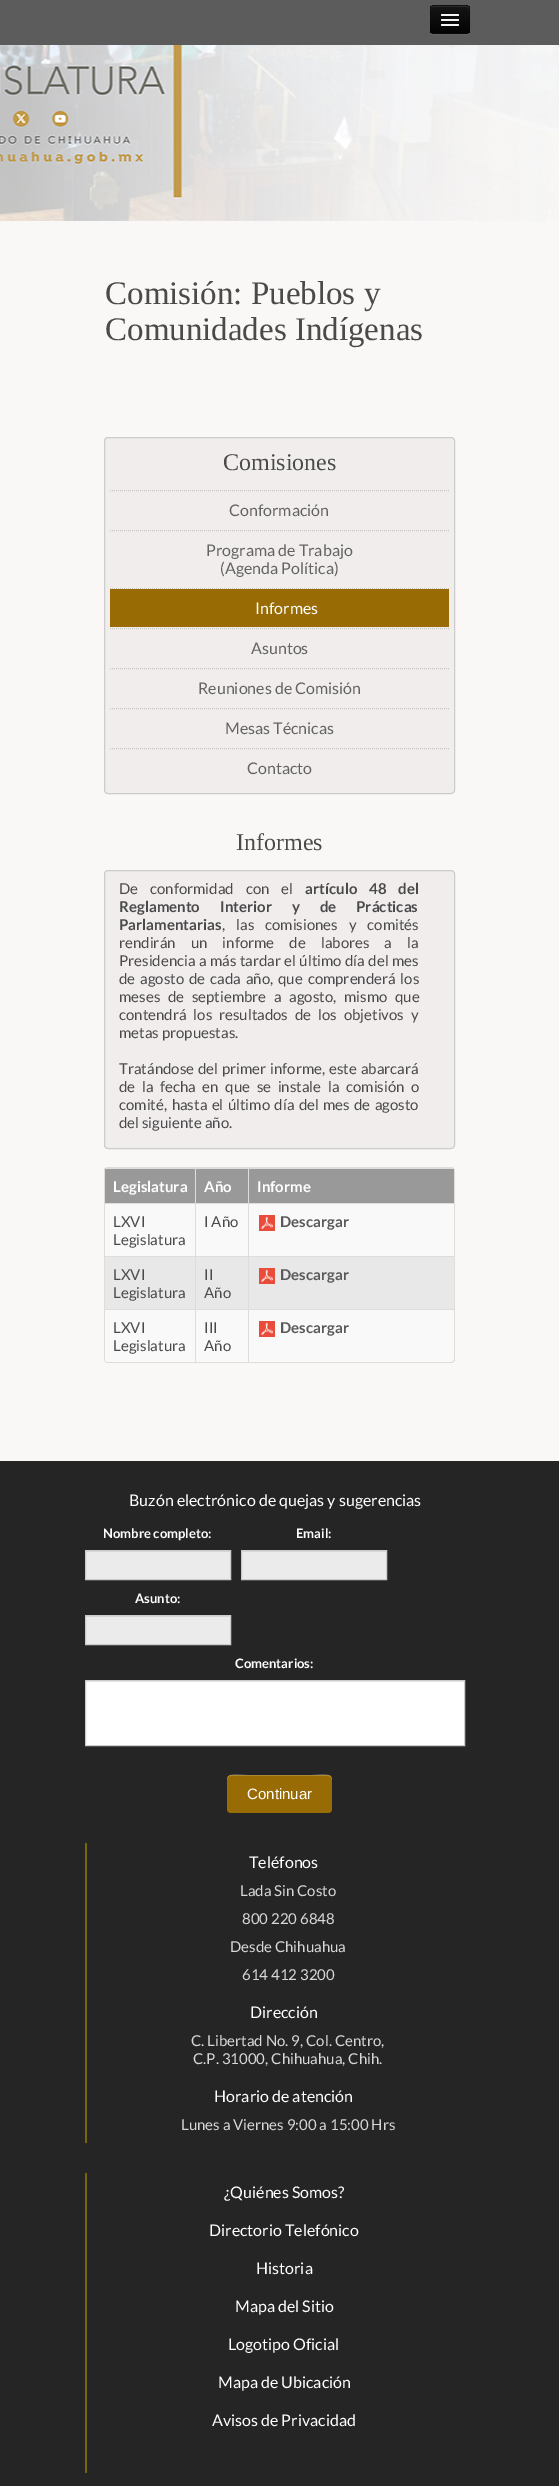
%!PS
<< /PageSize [559 2486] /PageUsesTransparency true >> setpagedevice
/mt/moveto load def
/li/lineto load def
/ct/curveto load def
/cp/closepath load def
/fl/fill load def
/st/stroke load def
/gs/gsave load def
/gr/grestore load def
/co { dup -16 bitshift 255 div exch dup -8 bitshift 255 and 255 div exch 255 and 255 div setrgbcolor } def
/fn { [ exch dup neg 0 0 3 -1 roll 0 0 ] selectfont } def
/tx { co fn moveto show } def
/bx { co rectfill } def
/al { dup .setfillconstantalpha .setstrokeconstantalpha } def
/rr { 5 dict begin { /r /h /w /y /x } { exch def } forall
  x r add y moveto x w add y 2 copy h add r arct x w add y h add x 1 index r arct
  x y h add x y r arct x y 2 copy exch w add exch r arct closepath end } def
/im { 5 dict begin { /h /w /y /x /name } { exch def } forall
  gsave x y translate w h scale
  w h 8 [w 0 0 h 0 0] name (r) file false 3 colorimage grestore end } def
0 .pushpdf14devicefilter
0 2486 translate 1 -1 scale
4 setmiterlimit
0 0 559 2486 16#FAF8F6 bx
(media/1.raw) 0 45 559 176 im
0 0 559 45 16#5C5C5C bx
16#686868 co
430 30 mt 430 36 435 35 439 35 ct 461 35 li 465 35 470 36 470 30 ct 470 32 468 34 466 34 ct 434 34 li 432 34 430 32 430 30 ct cp fl
16#0E0E0E co
430 5 40 29 4 rr fl
gs
430 5 40 29 4 rr clip newpath
gs 430 6 mt 470 6 li 470 33 li 430 33 li cp clip newpath
<< /ShadingType 2 /ColorSpace /DeviceRGB /Coords [450 6 450 33] /Extend [true true] /Function << /FunctionType 2 /Domain [0 1] /C0 [.082 .082 .082] /C1 [.016 .016 .016] /N 1 >> >> shfill gr
gr
16#2C2C2C co
434 7 mt 466 7 li 468 7 469 8 469 10 ct 469 5 465 6 460.5 6 ct 439.5 6 li 435 6 431 5 431 10 ct 431 8 432 7 434 7 ct cp fl
0.25 al
16#000000 co
468.5 32.5 mt 468 33 467 33.5 466 33.5 ct 434 33.5 li 433 33.5 432 33 431.5 32.5 ct st
0.1 al
431.5 32.5 mt 431 32 430.5 31 430.5 30 ct 430.5 9 li 430.5 8 431 7 431.5 6.5 ct 432 6 433 5.5 434 5.5 ct 466 5.5 li 467 5.5 468 6 468.5 6.5 ct 469 7 469.5 8 469.5 9 ct 469.5 30 li 469.5 31 469 32 468.5 32.5 ct st
1 al
16#0B0B0B co
441 15.5 mt 440 17.5 444.5 17 444.5 17 ct 455.5 17 li 455.5 17 460 17.5 459 15.5 ct 458 16.5 451.5 16 450 16 ct 448.5 16 442 16.5 441 15.5 ct cp fl
16#F5F5F5 co
441 14 18 2 1 rr fl
16#080808 co
441 20.5 mt 440 22.5 444.5 22 444.5 22 ct 455.5 22 li 455.5 22 460 22.5 459 20.5 ct 458 21.5 451.5 21 450 21 ct 448.5 21 442 21.5 441 20.5 ct cp fl
16#F5F5F5 co
441 19 18 2 1 rr fl
441 24 18 2 1 rr fl
16#F1EDED co
104.5 437.5 350 356 3.5 rr gs fl gr
16#CCCCCC co
st
16#C5C5C5 co
[1 1] 0 setdash
110 490.5 mt 449 490.5 li st
110 530.5 mt 449 530.5 li st
110 588.5 mt 449 588.5 li st
110 589 339 38 16#996B04 bx
16#C5C5C5 co
110 628.5 mt 449 628.5 li st
110 668.5 mt 449 668.5 li st
110 708.5 mt 449 708.5 li st
110 748.5 mt 449 748.5 li st
16#F1EDED co
104.5 870.5 350 278 3.5 rr gs fl gr
16#CCCCCC co
[] 0 setdash
st
16#E8E8E8 co
104 1167 351 196 4 rr fl
16#DDDDDD co
108 1167 mt 451 1167 li 453 1167 455 1169 455 1171 ct 455 1359 li 455 1361 453 1363 451 1363 ct 108 1363 li 106 1363 104 1361 104 1359 ct 104 1171 li 104 1169 106 1167 108 1167 ct cp 108 1168 mt 451 1168 li 453 1168 454 1169 454 1171 ct 454 1359 li 454 1361 453 1362 451 1362 ct 108 1362 li 106 1362 104 1361 104 1359 ct 104 1171 li 104 1169 106 1168 108 1168 ct cp eofill
105 1169 90 34 16#999999 bx
104 1168 350 1 16#DDDDDD bx
104 1168 1 35 16#DDDDDD bx
196 1169 52 34 16#999999 bx
195 1168 1 35 16#DDDDDD bx
249 1169 205 34 16#999999 bx
248 1168 1 35 16#DDDDDD bx
105 1204 90 52 16#F9F9F9 bx
104 1203 350 1 16#DDDDDD bx
104 1203 1 53 16#DDDDDD bx
196 1204 52 52 16#F9F9F9 bx
195 1203 1 53 16#DDDDDD bx
249 1204 205 52 16#F9F9F9 bx
248 1203 1 53 16#DDDDDD bx
(media/2.raw) 259 1215 16 16 im
104 1256 350 1 16#DDDDDD bx
104 1256 1 53 16#DDDDDD bx
195 1256 1 53 16#DDDDDD bx
248 1256 1 53 16#DDDDDD bx
(media/2.raw) 259 1268 16 16 im
16#F9F9F9 co
104 1309 mt 195 1309 li 195 1362 li 108 1362 li 106 1362 104 1360 104 1358 ct cp fl
104 1309 144 1 16#DDDDDD bx
104 1309 1 51 16#DDDDDD bx
196 1310 52 52 16#F9F9F9 bx
195 1309 1 53 16#DDDDDD bx
16#F9F9F9 co
248 1309 mt 454 1309 li 454 1358 li 454 1360 452 1362 450 1362 ct 248 1362 li cp fl
248 1309 206 1 16#DDDDDD bx
248 1309 1 53 16#DDDDDD bx
(media/2.raw) 259 1321 16 16 im
0 1461 559 1025 16#262525 bx
86 1552 144 27 16#EBEBEB bx
86 1551 144 1 16#D9D9D9 bx
16#CCCCCC co
85.5 1550.5 145 29 rectstroke
242 1552 144 27 16#EBEBEB bx
242 1551 144 1 16#D9D9D9 bx
16#CCCCCC co
241.5 1550.5 145 29 rectstroke
86 1617 144 27 16#EBEBEB bx
86 1616 144 1 16#D9D9D9 bx
16#CCCCCC co
85.5 1615.5 145 29 rectstroke
86 1682 378 63 16#FFFFFF bx
86 1681 378 1 16#ECECEC bx
16#CCCCCC co
85.5 1680.5 379 65 rectstroke
16#996B04 co
227 1775 105 38 4 rr fl
0.2 al
16#FFFFFF co
231 1776 mt 328 1776 li 330 1776 332 1778 332 1780 ct 332 1771 316 1775 312 1775 ct 247 1775 li 243 1775 227 1771 227 1780 ct 227 1778 229 1776 231 1776 ct cp fl
1 al
85 1843 2 300 16#776706 bx
85 2173 2 300 16#776706 bx
(Comisión: Pueblos y) 105 304 /LiberationSerif-Regular 33 16#4A4A4A tx
(Comunidades Indígenas) 105 340 /LiberationSerif-Regular 33 16#4A4A4A tx
(Comisiones) 223 470 /LiberationSerif-Regular 24 16#4A4A4A tx
(Conformación) 229 516 /Lato-Regular 16 16#636363 tx
(Programa de Trabajo) 206 556 /Lato-Regular 16 16#636363 tx
(\(Agenda Política\)) 220 574 /Lato-Regular 16 16#636363 tx
(Informes) 255 614 /Lato-Regular 16 16#FFFFFF tx
(Asuntos) 251 654 /Lato-Regular 16 16#636363 tx
(Reuniones de Comisión) 198 694 /Lato-Regular 16 16#636363 tx
(Mesas Técnicas) 225 734 /Lato-Regular 16 16#636363 tx
(Contacto) 247 774 /Lato-Regular 16 16#636363 tx
(Informes) 236 850 /LiberationSerif-Regular 24 16#4A4A4A tx
/Lato-Regular 15 fn
119 894 mt 9 0 32 (De conformidad con el) widthshow
/Lato-Bold 15 fn
305 894 mt 9 0 32 (artículo 48 del) widthshow
119 912 mt 17 0 32 (Reglamento Interior y de Prácticas) widthshow
(Parlamentarias) 119 930 /Lato-Bold 15 16#4A4A4A tx
/Lato-Regular 15 fn
222 930 mt 8 0 32 (, las comisiones y comités) widthshow
119 948 mt 12.25 0 32 (rendirán un informe de labores a la) widthshow
119 966 mt .5 0 32 (Presidencia a más tardar el último día del mes) widthshow
119 984 mt 2 0 32 (de agosto de cada año, que comprenderá los) widthshow
119 1002 mt 4.75 0 32 (meses de septiembre a agosto, mismo que) widthshow
119 1020 mt 4 0 32 (contendrá los resultados de los objetivos y) widthshow
(metas propuestas.) 119 1038 /Lato-Regular 15 16#4A4A4A tx
119 1074 mt 1 0 32 (Tratándose del primer informe, este abarcará) widthshow
119 1092 mt 3.75 0 32 (de la fecha en que se instale la comisión o) widthshow
119 1110 mt 1.5 0 32 (comité, hasta el último día del mes de agosto) widthshow
(del siguiente año.) 119 1128 /Lato-Regular 15 16#4A4A4A tx
(Legislatura) 113 1192 /Lato-Bold 15 16#FFFFFF tx
(Año) 204 1192 /Lato-Bold 15 16#FFFFFF tx
(Informe) 257 1192 /Lato-Bold 15 16#FFFFFF tx
(LXVI) 113 1227 /Lato-Regular 15 16#4A4A4A tx
(Legislatura) 113 1245 /Lato-Regular 15 16#4A4A4A tx
(I Año) 204 1227 /Lato-Regular 15 16#4A4A4A tx
(Descargar) 280 1227 /Lato-Bold 15 16#5A5959 tx
(LXVI) 113 1280 /Lato-Regular 15 16#4A4A4A tx
(Legislatura) 113 1298 /Lato-Regular 15 16#4A4A4A tx
(II) 204 1280 /Lato-Regular 15 16#4A4A4A tx
(Año) 204 1298 /Lato-Regular 15 16#4A4A4A tx
(Descargar) 280 1280 /Lato-Bold 15 16#5A5959 tx
(LXVI) 113 1333 /Lato-Regular 15 16#4A4A4A tx
(Legislatura) 113 1351 /Lato-Regular 15 16#4A4A4A tx
(III) 204 1333 /Lato-Regular 15 16#4A4A4A tx
(Año) 204 1351 /Lato-Regular 15 16#4A4A4A tx
(Descargar) 280 1333 /Lato-Bold 15 16#5A5959 tx
(Buzón electrónico de quejas y sugerencias) 129 1506 /Lato-Regular 16 16#FFFFFF tx
(Nombre completo:) 103 1538 /Lato-Bold 13 16#FFFFFF tx
(Email:) 296 1538 /Lato-Bold 13 16#FFFFFF tx
(Asunto:) 135 1603 /Lato-Bold 13 16#FFFFFF tx
(Comentarios:) 235 1668 /Lato-Bold 13 16#FFFFFF tx
(Continuar) 247 1799 /LiberationSans-Regular 15 16#FFFFFF tx
(Teléfonos) 249 1868 /Lato-Regular 16 16#FFFFFF tx
(Lada Sin Costo) 240 1896 /Lato-Regular 15 16#D7D7D7 tx
(800 220 6848) 242 1924 /Lato-Regular 15 16#D7D7D7 tx
(Desde Chihuahua) 230 1952 /Lato-Regular 15 16#D7D7D7 tx
(614 412 3200) 242 1980 /Lato-Regular 15 16#D7D7D7 tx
(Dirección) 250 2018 /Lato-Regular 16 16#FFFFFF tx
(C. Libertad No. 9, Col. Centro,) 191 2046 /Lato-Regular 15 16#D7D7D7 tx
(C.P. 31000, Chihuahua, Chih.) 193 2064 /Lato-Regular 15 16#D7D7D7 tx
(Horario de atención) 214 2102 /Lato-Regular 16 16#FFFFFF tx
(Lunes a Viernes 9:00 a 15:00 Hrs) 181 2130 /Lato-Regular 15 16#D7D7D7 tx
(¿Quiénes Somos?) 224 2198 /Lato-Regular 16 16#FFFFFF tx
(Directorio Telefónico) 209 2236 /Lato-Regular 16 16#FFFFFF tx
(Historia) 256 2274 /Lato-Regular 16 16#FFFFFF tx
(Mapa del Sitio) 235 2312 /Lato-Regular 16 16#FFFFFF tx
(Logotipo Oficial) 228 2350 /Lato-Regular 16 16#FFFFFF tx
(Mapa de Ubicación) 218 2388 /Lato-Regular 16 16#FFFFFF tx
(Avisos de Privacidad) 212 2426 /Lato-Regular 16 16#FFFFFF tx
.poppdf14devicefilter showpage
